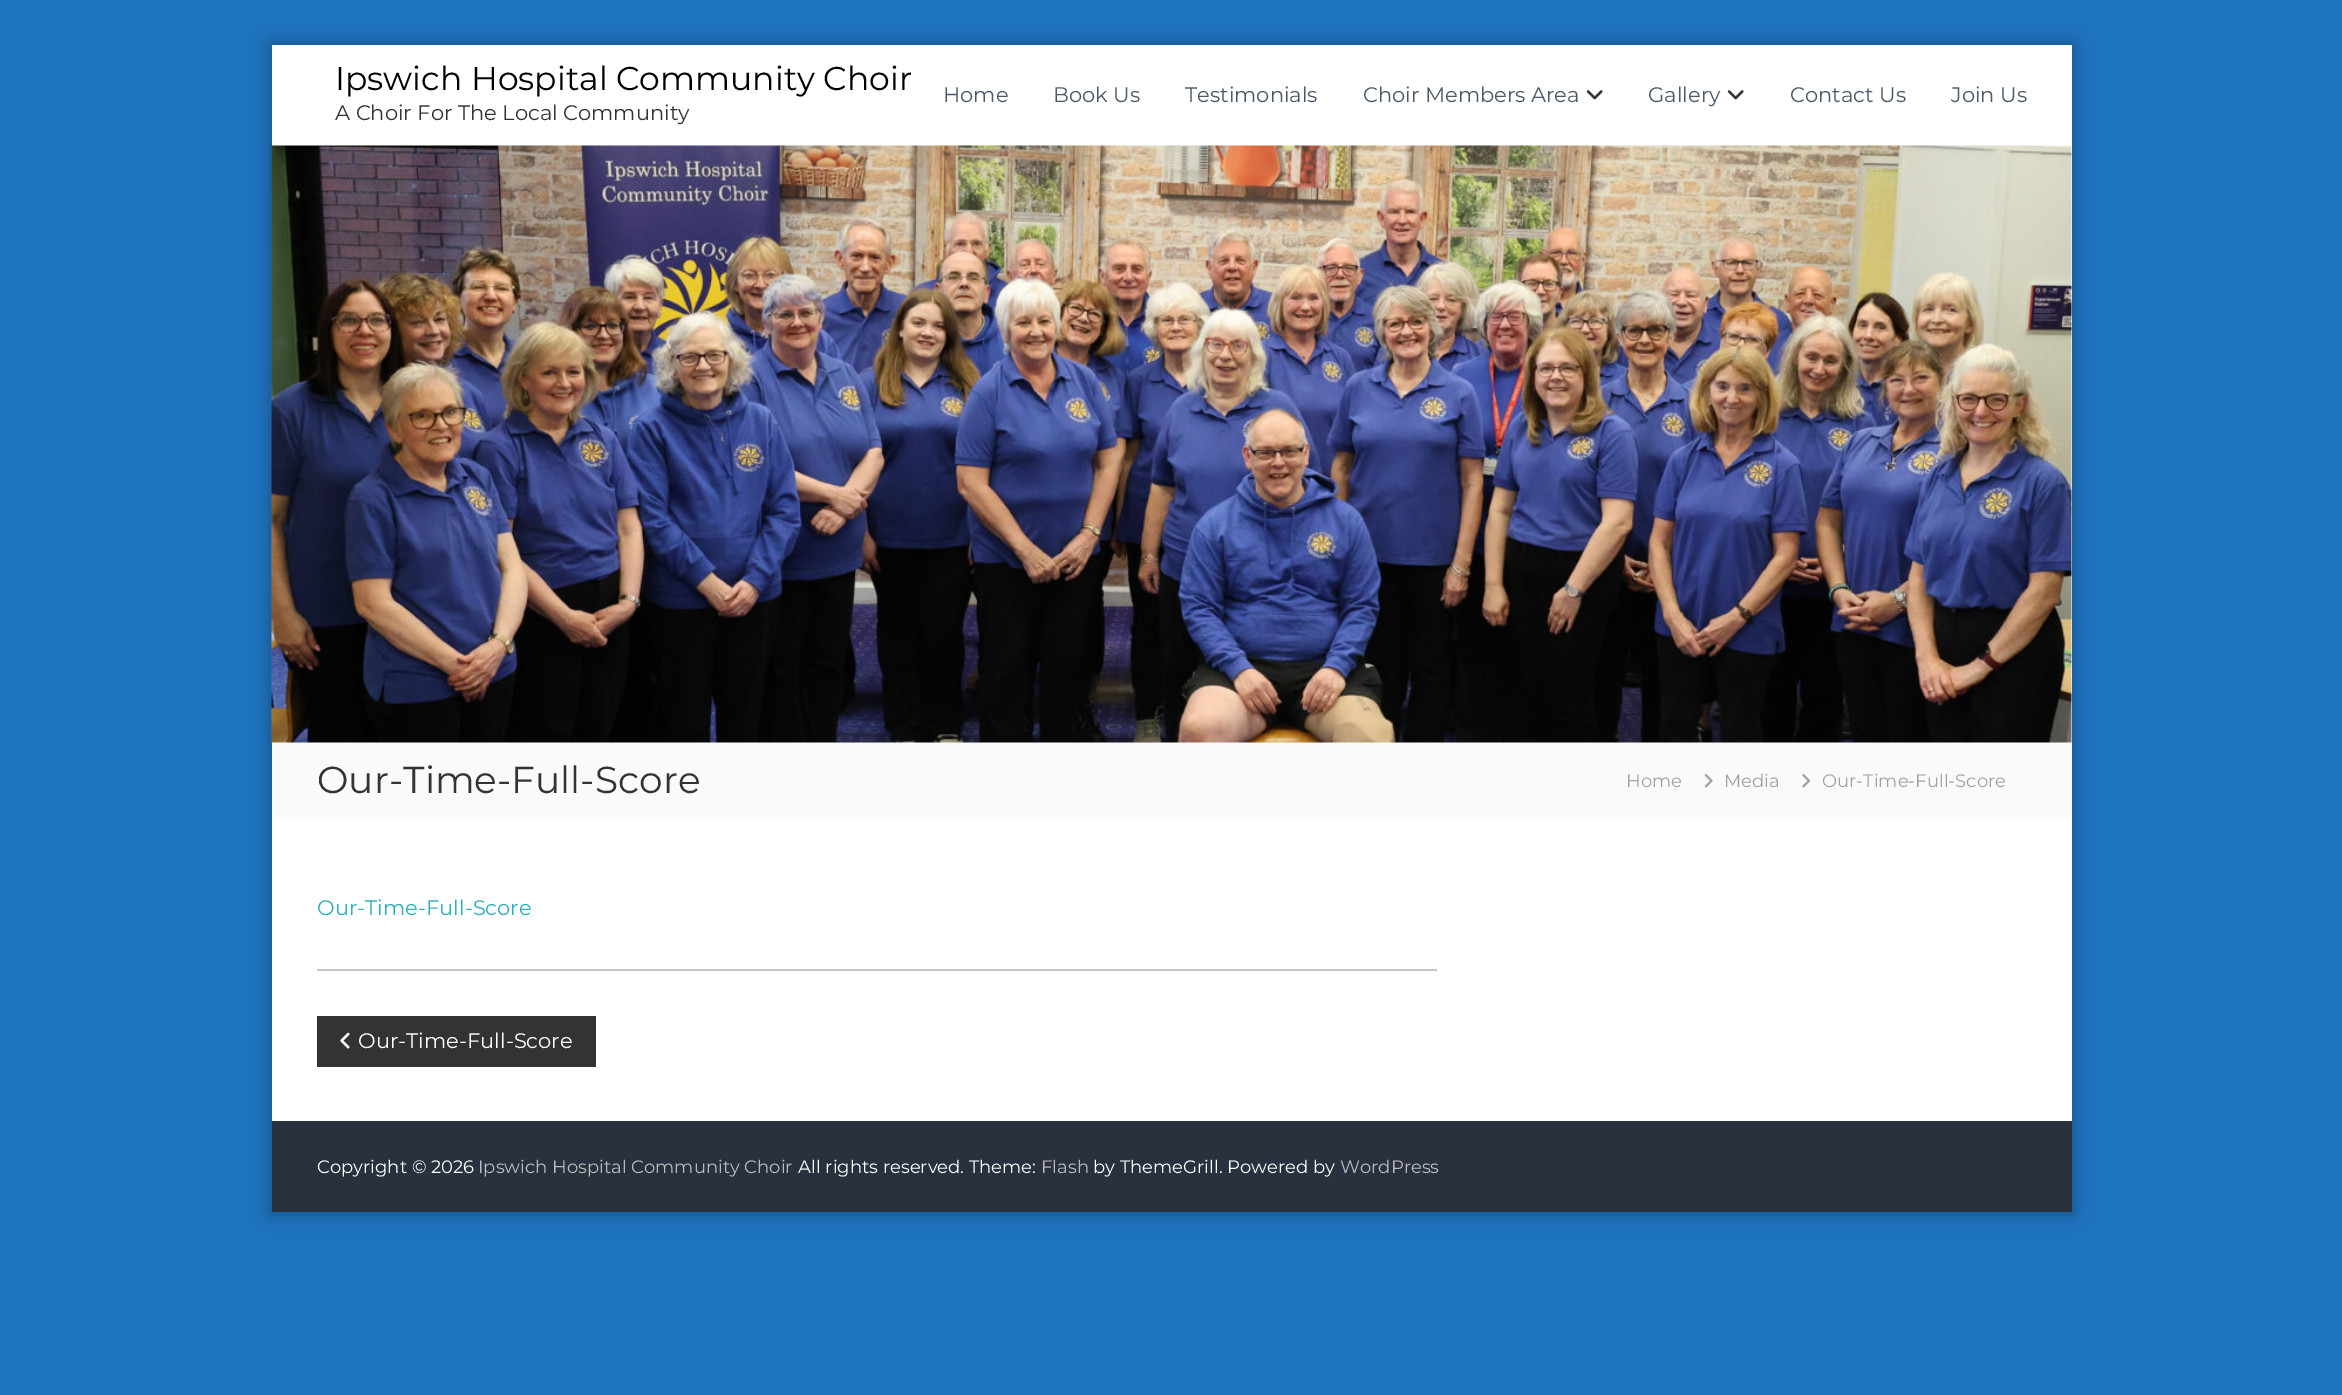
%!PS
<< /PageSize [2342 1395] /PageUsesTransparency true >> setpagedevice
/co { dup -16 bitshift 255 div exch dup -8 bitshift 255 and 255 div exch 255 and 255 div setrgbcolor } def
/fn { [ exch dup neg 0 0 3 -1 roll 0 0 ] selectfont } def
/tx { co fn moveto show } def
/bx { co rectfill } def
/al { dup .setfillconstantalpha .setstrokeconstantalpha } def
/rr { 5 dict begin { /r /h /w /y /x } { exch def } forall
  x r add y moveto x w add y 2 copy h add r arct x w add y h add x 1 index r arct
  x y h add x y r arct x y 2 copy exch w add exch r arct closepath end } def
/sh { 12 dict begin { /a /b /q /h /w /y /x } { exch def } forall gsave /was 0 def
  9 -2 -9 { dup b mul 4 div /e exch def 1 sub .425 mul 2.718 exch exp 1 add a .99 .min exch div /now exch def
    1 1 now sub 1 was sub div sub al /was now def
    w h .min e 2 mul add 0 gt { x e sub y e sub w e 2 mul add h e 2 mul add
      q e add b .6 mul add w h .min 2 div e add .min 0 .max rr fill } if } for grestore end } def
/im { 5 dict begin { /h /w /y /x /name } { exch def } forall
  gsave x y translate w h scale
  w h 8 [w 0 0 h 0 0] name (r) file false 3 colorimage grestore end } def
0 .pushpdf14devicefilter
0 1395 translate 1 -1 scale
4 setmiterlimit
0 0 2342 1395 16#1E73BE bx
16#000000 co
270 44 1803 1170 0 9 .3 sh
272 45 1800 1076 16#FFFFFF bx
(media/1.raw) 1586 90 17 10 im
(media/1.raw) 1727 90 17 10 im
(media/2.raw) 271 145 1801 598 im
272 743 1800 75 16#FAFAFA bx
(media/3.raw) 1704 774 9 14 im
(media/4.raw) 1802 774 9 14 im
317 969 1120 2 16#C5C5C5 bx
317 1016 279 51 16#333333 bx
(media/5.raw) 340 1032 10 17 im
272 1121 1800 91 16#28313D bx
(Ipswich Hospital Community Choir) 335 90 /Montserrat-Regular 33 16#000000 tx
(A Choir For The Local Community) 335 120 /Montserrat-Regular 21 16#333333 tx
(Home) 943 102 /Montserrat-Regular 21 16#4C5867 tx
(Book Us) 1053 102 /Montserrat-Regular 21 16#4C5867 tx
(Testimonials) 1185 102 /Montserrat-Regular 21 16#4C5867 tx
(Choir Members Area) 1363 102 /Montserrat-Regular 21 16#4C5867 tx
(Gallery) 1648 102 /Montserrat-Regular 21 16#4C5867 tx
(Contact Us) 1790 102 /Montserrat-Regular 21 16#4C5867 tx
(Join Us) 1951 102 /Montserrat-Regular 21 16#4C5867 tx
(Our-Time-Full-Score) 317 793 /Montserrat-Regular 37.5 16#333333 tx
(Home) 1626 787 /Montserrat-Regular 18 16#A1A1A1 tx
(Media) 1724 787 /Montserrat-Regular 18 16#A1A1A1 tx
(Our-Time-Full-Score) 1822 787 /Montserrat-Regular 18 16#A1A1A1 tx
(Our-Time-Full-Score) 317 915 /Montserrat-Regular 21 16#30AFB8 tx
(Our-Time-Full-Score) 358 1048 /Montserrat-Regular 21 16#FFFFFF tx
(Copyright © 2026) 317 1173 /Montserrat-Regular 18 16#FFFFFF tx
(Ipswich Hospital Community Choir) 478 1173 /Montserrat-Regular 18 16#BCBABA tx
(All rights reserved. Theme:) 798 1173 /Montserrat-Regular 18 16#FFFFFF tx
(Flash) 1041 1173 /Montserrat-Regular 18 16#BCBABA tx
(by ThemeGrill. Powered by) 1093 1173 /Montserrat-Regular 18 16#FFFFFF tx
(WordPress) 1340 1173 /Montserrat-Regular 18 16#BCBABA tx
.poppdf14devicefilter showpage
